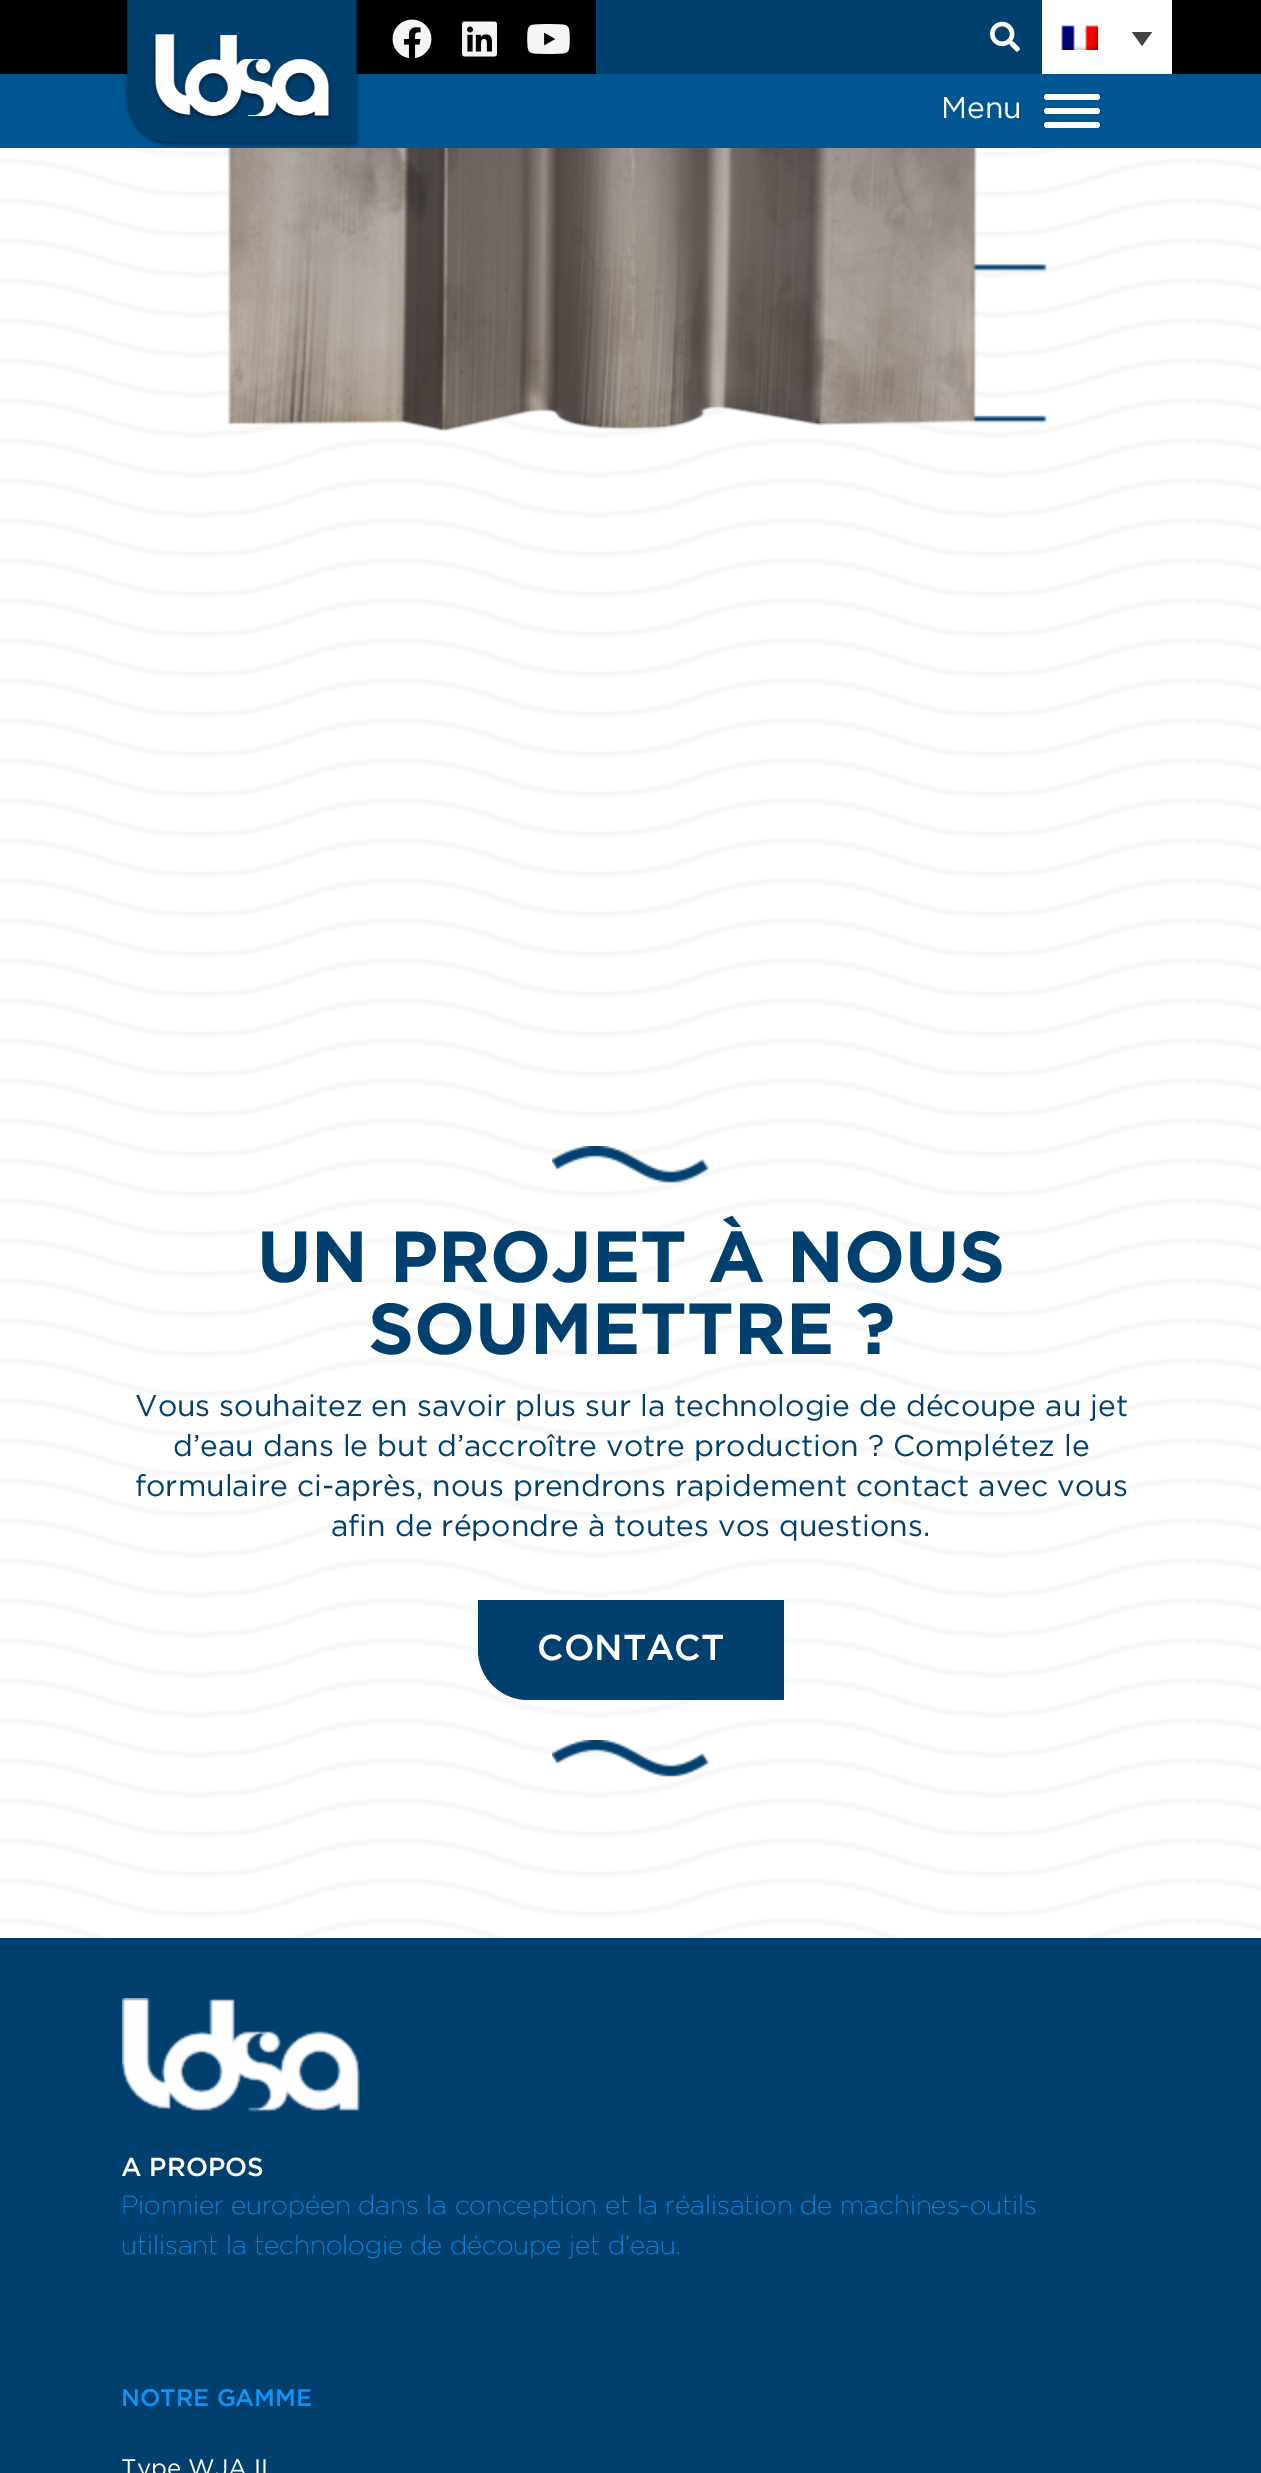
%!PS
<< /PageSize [1261 2473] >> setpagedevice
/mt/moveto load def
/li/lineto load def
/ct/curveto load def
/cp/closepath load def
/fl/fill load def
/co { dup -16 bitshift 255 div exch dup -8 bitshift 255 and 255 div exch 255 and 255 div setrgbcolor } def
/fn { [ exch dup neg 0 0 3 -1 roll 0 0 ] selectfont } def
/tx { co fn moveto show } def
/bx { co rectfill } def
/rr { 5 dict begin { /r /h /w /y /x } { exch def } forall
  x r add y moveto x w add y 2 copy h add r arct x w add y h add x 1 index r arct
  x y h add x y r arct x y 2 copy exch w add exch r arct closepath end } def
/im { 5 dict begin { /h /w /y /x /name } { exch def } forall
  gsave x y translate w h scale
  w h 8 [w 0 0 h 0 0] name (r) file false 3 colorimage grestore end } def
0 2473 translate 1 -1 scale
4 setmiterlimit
0 0 1261 2473 16#FFFFFF bx
(media/1.raw) 0 148 1261 1790 im
0 0 1261 74 16#000000 bx
0 74 1261 74 16#005593 bx
(media/2.raw) 124 0 236 148 im
(media/3.raw) 392 19 40 40 im
(media/4.raw) 462 21 35 36 im
(media/5.raw) 527 24 43 30 im
596 0 446 74 16#00406F bx
(media/6.raw) 990 21 30 31 im
1042 0 130 74 16#FFFFFF bx
(media/7.raw) 1061 25 37 25 im
16#444444 co
1132 32 mt 1152 32 li 1142 46 li cp fl
16#FFFFFF co
1044 94 56 6 3 rr fl
1044 108 56 6 3 rr fl
1044 122 56 6 3 rr fl
(media/8.raw) 227 148 820 284 im
(media/9.raw) 552 1146 157 37 im
16#00406F co
478 1600 mt 784 1600 li 784 1700 li 528 1700 li 500.5 1700 478 1677.5 478 1650 ct cp fl
(media/10.raw) 552 1740 157 37 im
0 1938 1261 535 16#00406F bx
(media/11.raw) 122 1998 238 114 im
(Menu) 941 118 /Gotham-Regular 30 16#FFFFFF tx
(UN PROJET À NOUS) 257 1282 /Gotham-Bold 72 16#00406F tx
(SOUMETTRE ?) 368 1354 /Gotham-Bold 72 16#00406F tx
(Vous souhaitez en savoir plus sur la technologie de découpe au jet) 135 1416 /Gotham-Regular 30 16#00406F tx
(d’eau dans le but d’accroître votre production ? Complétez le) 173 1456 /Gotham-Regular 30 16#00406F tx
(formulaire ci-après, nous prendrons rapidement contact avec vous) 135 1496 /Gotham-Regular 30 16#00406F tx
(afin de répondre à toutes vos questions.) 331 1536 /Gotham-Regular 30 16#00406F tx
(CONTACT) 537 1660 /Gotham-Medium 36 16#FFFFFF tx
(A PROPOS) 121 2176 /Gotham-Medium 26 16#FFFFFF tx
(Pionnier européen dans la conception et la réalisation de machines-outils) 121 2214 /Gotham-ExtraLight 26 16#0997FF tx
(utilisant la technologie de découpe jet d’eau.) 121 2254 /Gotham-ExtraLight 26 16#0997FF tx
(NOTRE GAMME) 121 2406 /Gotham-Medium 24 16#0997FF tx
(Type WJA II) 121 2476 /Gotham-Regular 24 16#FFFFFF tx
showpage
